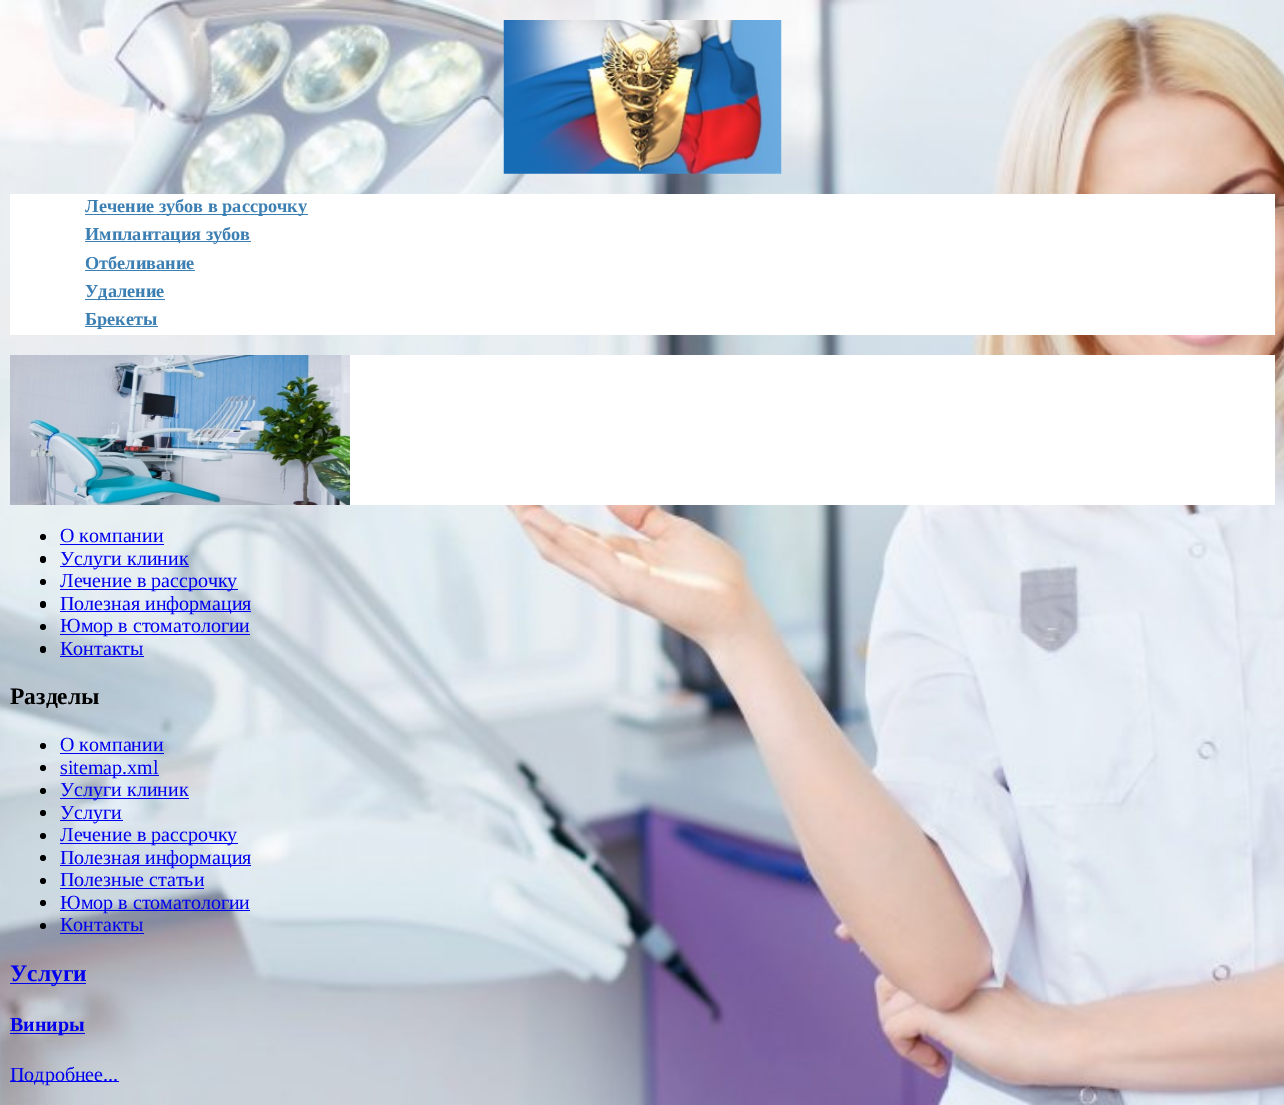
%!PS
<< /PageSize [1284 1105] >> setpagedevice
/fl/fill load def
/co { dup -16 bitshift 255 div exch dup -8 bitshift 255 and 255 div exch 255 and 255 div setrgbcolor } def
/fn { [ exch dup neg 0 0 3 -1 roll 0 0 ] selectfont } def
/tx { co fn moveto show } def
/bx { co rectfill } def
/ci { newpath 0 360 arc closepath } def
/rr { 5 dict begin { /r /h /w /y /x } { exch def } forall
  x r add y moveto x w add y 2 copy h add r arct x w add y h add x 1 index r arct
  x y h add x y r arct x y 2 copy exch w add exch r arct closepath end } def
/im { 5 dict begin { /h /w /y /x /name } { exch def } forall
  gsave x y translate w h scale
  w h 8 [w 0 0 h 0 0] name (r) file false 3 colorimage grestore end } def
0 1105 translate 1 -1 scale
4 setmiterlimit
0 0 1284 1105 16#FFFFFF bx
(media/1.raw) 0 0 1284 1105 im
(media/2.raw) 503 20 279 154 im
10 194 1265 141 16#FFFFFF bx
85 214 223 1 16#3C7FB3 bx
85 241 166 1 16#3C7FB3 bx
85 270 110 1 16#3C7FB3 bx
85 299 80 1 16#3C7FB3 bx
85 326 73 1 16#3C7FB3 bx
350 355 925 150 16#FFFFFF bx
(media/3.raw) 10 355 340 150 im
16#000000 co
43 537 3 ci fl
60 544 104 1 16#0000EE bx
16#000000 co
40 556 6 7 3 rr fl
60 566 129 1 16#0000EE bx
16#000000 co
43 582 3 ci fl
60 589 178 1 16#0000EE bx
16#000000 co
40 601 6 7 3 rr fl
60 611 191 1 16#0000EE bx
16#000000 co
43 627 3 ci fl
60 634 190 1 16#0000EE bx
16#000000 co
40 646 6 7 3 rr fl
60 656 84 1 16#0000EE bx
16#000000 co
43 746 3 ci fl
60 753 104 1 16#0000EE bx
16#000000 co
43 768 3 ci fl
60 775 99 1 16#0000EE bx
16#000000 co
43 791 3 ci fl
60 798 129 1 16#0000EE bx
16#000000 co
43 813 3 ci fl
60 820 63 1 16#0000EE bx
16#000000 co
43 836 3 ci fl
60 843 178 1 16#0000EE bx
16#000000 co
43 858 3 ci fl
60 865 191 1 16#0000EE bx
16#000000 co
43 881 3 ci fl
60 888 144 1 16#0000EE bx
16#000000 co
43 903 3 ci fl
60 910 190 1 16#0000EE bx
16#000000 co
43 926 3 ci fl
60 933 84 1 16#0000EE bx
10 983 76 1 16#0000EE bx
10 1033 75 1 16#0000EE bx
10 1081 109 1 16#0000EE bx
(Лечение зубов в рассрочку) 85 212 /LiberationSerif-Bold 18.25 16#3C7FB3 tx
(Имплантация зубов) 85 240 /LiberationSerif-Bold 18.25 16#3C7FB3 tx
(Отбеливание) 85 269 /LiberationSerif-Bold 18.25 16#3C7FB3 tx
(Удаление) 85 297 /LiberationSerif-Bold 18.25 16#3C7FB3 tx
(Брекеты) 85 325 /LiberationSerif-Bold 18.25 16#3C7FB3 tx
(О компании) 60 542 /LiberationSerif-Regular 20 16#0000EE tx
(Услуги клиник) 60 565 /LiberationSerif-Regular 20 16#0000EE tx
(Лечение в рассрочку) 60 587 /LiberationSerif-Regular 20 16#0000EE tx
(Полезная информация) 60 610 /LiberationSerif-Regular 20 16#0000EE tx
(Юмор в стоматологии) 60 632 /LiberationSerif-Regular 20 16#0000EE tx
(Контакты) 60 655 /LiberationSerif-Regular 20 16#0000EE tx
(Разделы) 10 704 /LiberationSerif-Bold 23.5 16#000000 tx
(О компании) 60 751 /LiberationSerif-Regular 20 16#0000EE tx
(sitemap.xml) 60 774 /LiberationSerif-Regular 20 16#0000EE tx
(Услуги клиник) 60 796 /LiberationSerif-Regular 20 16#0000EE tx
(Услуги) 60 819 /LiberationSerif-Regular 20 16#0000EE tx
(Лечение в рассрочку) 60 841 /LiberationSerif-Regular 20 16#0000EE tx
(Полезная информация) 60 864 /LiberationSerif-Regular 20 16#0000EE tx
(Полезные статьи) 60 886 /LiberationSerif-Regular 20 16#0000EE tx
(Юмор в стоматологии) 60 909 /LiberationSerif-Regular 20 16#0000EE tx
(Контакты) 60 931 /LiberationSerif-Regular 20 16#0000EE tx
(Услуги) 10 981 /LiberationSerif-Bold 23.5 16#0000EE tx
(Виниры) 10 1031 /LiberationSerif-Bold 20 16#0000EE tx
(Подробнее...) 10 1081 /LiberationSerif-Regular 20 16#0000EE tx
showpage
